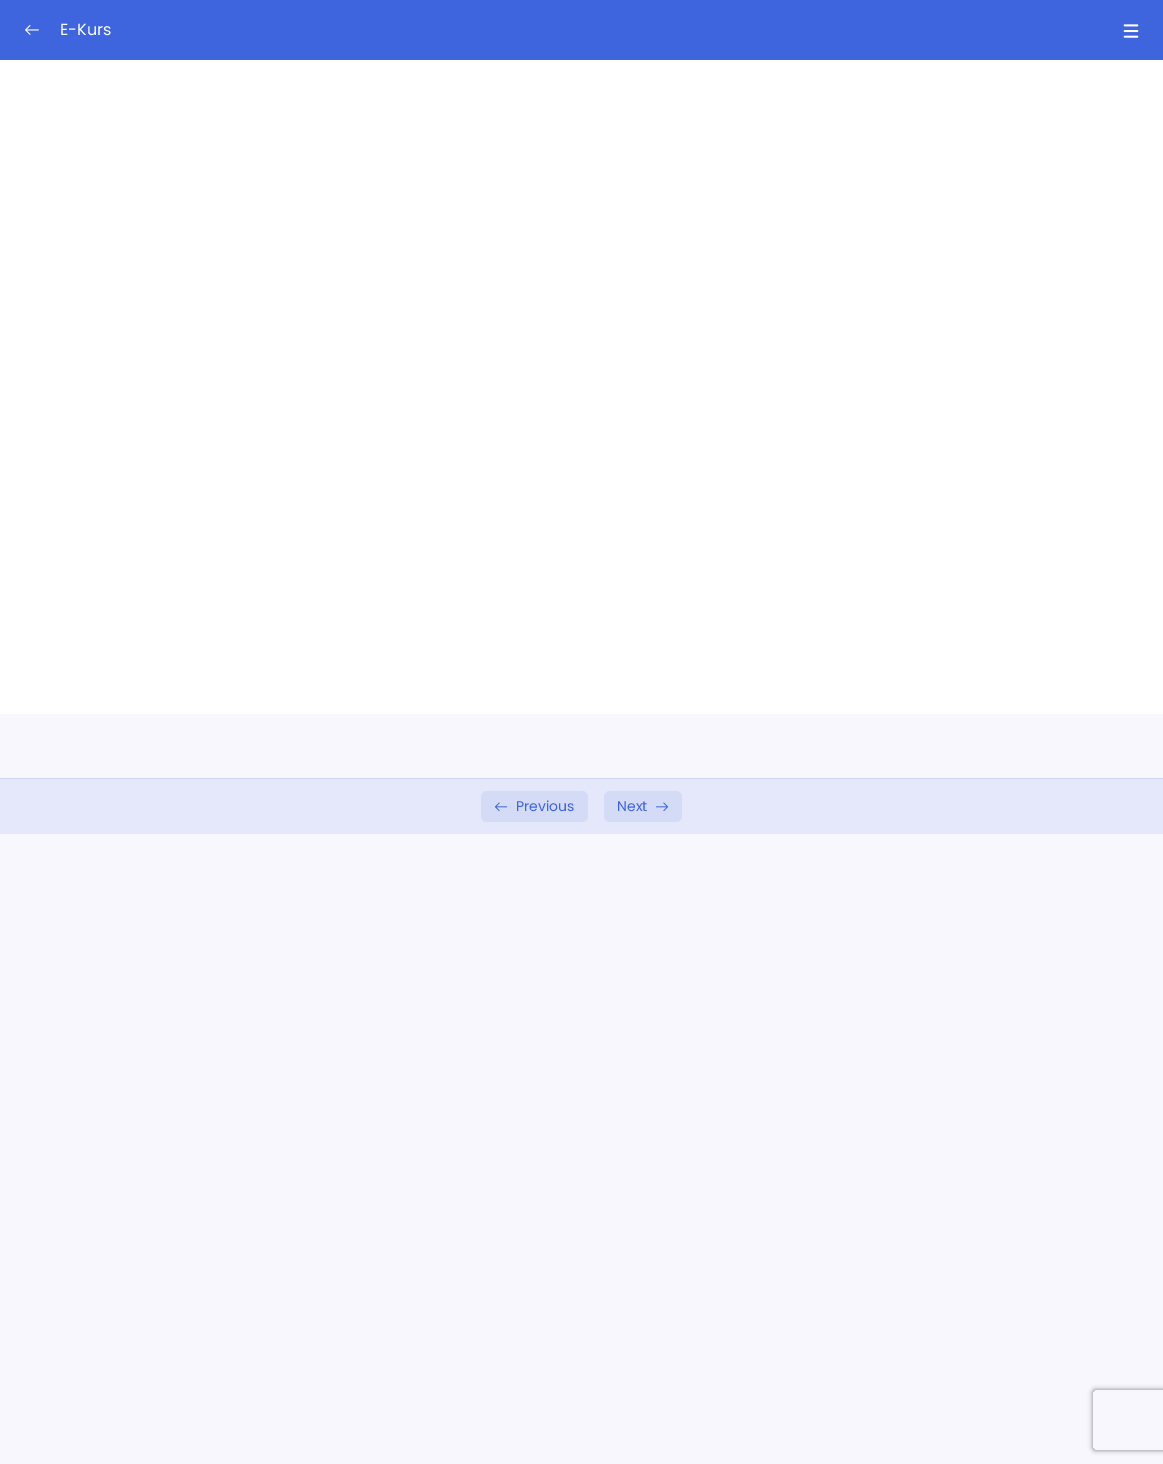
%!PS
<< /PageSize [1163 1464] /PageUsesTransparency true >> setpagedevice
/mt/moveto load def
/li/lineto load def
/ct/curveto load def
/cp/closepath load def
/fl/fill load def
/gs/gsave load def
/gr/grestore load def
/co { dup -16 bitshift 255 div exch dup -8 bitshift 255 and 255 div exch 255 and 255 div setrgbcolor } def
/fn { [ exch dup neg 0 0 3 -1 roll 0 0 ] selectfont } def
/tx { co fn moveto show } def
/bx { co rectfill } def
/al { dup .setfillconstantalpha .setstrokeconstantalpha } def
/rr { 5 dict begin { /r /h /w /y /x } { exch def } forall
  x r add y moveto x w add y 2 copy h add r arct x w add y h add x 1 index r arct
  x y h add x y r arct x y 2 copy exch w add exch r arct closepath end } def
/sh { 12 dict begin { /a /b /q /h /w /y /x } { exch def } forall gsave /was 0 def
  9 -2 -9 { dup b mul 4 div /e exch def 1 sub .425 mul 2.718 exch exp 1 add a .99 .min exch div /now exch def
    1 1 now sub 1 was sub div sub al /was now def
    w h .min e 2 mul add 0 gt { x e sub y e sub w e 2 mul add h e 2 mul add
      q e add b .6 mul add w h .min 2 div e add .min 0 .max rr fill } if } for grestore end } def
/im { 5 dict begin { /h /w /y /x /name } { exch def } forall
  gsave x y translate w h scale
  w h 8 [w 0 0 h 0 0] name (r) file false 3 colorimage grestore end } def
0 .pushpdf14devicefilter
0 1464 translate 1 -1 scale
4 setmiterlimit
0 0 1163 1464 16#F7F7FD bx
0 0 1163 60 16#3E64DE bx
(media/1.raw) 25 25 14 10 im
(media/2.raw) 1123 24 16 14 im
0 60 1163 654 16#FFFFFF bx
0 779 1163 55 16#E4E8FA bx
0 778 1163 1 16#CBD4F6 bx
16#D3DBF7 co
481 791 107 31 6 rr fl
(media/3.raw) 494 802 14 10 im
604 791 78 31 6 rr fl
(media/4.raw) 655 802 14 10 im
gs
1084 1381 mt 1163 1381 li 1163 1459 li 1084 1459 li cp 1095 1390 mt 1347 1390 li 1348 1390 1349 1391 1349 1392 ct 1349 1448 li 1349 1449 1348 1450 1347 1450 ct 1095 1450 li 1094 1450 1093 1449 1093 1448 ct 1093 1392 li 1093 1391 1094 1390 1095 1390 ct cp eoclip newpath
16#808080 co
1093 1390 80 60 2 2.5 1 sh
gr
(E-Kurs) 60 35 /Poppins-Regular 16 16#FFFFFF tx
(Previous) 516 811 /Poppins-Regular 14 16#3E64DE tx
(Next) 617 811 /Poppins-Regular 14 16#3E64DE tx
.poppdf14devicefilter showpage
